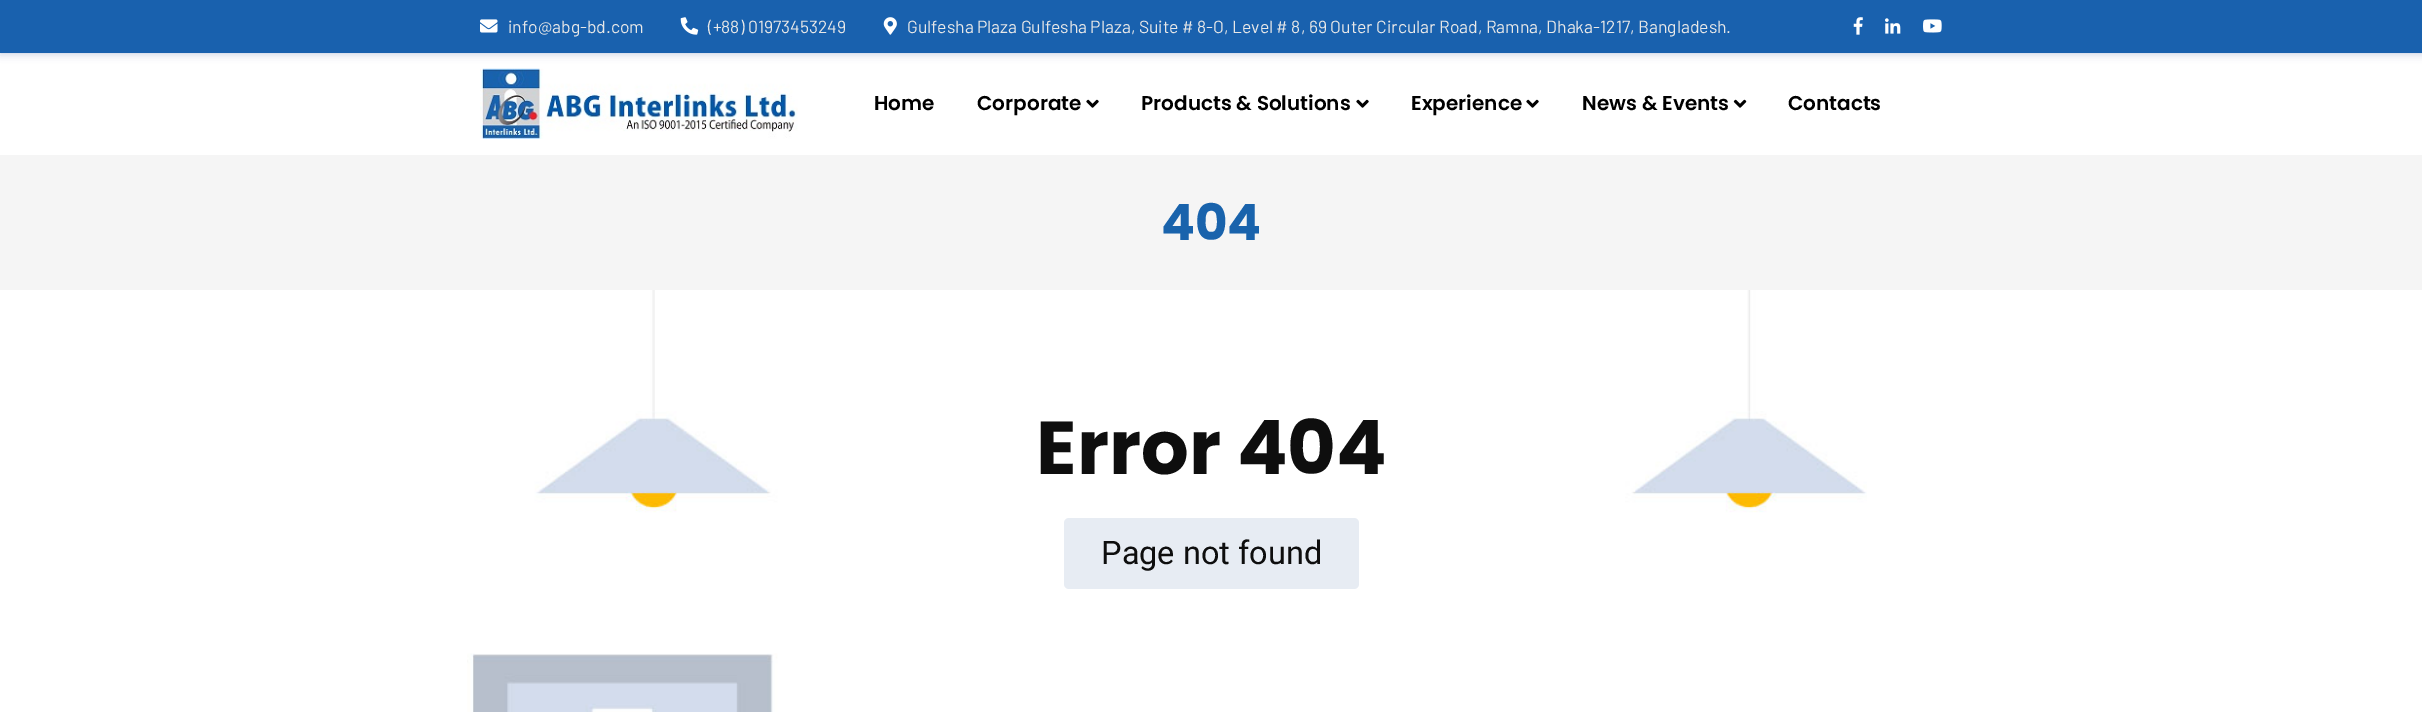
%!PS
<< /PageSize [2422 712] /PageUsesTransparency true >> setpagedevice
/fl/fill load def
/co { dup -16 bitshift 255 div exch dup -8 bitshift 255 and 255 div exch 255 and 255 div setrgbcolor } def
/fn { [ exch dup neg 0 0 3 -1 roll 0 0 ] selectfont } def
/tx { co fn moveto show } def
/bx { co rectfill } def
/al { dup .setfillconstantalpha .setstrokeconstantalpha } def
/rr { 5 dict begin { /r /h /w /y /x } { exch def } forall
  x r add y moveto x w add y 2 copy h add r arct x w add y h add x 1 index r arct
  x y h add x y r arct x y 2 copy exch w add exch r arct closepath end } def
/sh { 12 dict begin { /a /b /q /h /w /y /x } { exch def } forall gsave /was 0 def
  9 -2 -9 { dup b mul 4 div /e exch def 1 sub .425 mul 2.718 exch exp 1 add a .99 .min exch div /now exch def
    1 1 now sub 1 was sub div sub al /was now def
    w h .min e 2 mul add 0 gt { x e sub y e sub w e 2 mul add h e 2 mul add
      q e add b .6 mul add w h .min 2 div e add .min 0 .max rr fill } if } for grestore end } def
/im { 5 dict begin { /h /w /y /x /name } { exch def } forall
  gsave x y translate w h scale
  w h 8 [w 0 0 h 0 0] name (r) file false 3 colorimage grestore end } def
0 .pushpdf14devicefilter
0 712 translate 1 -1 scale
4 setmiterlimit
0 0 2422 712 16#FFFFFF bx
16#002777 co
0 0 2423 53 0 4.5 .27 sh
0 0 2422 53 16#1961AE bx
(media/1.raw) 480 19 18 14 im
(media/2.raw) 680 17 19 18 im
(media/3.raw) 883 17 14 18 im
(media/4.raw) 1853 17 10 18 im
(media/5.raw) 1885 18 16 16 im
(media/6.raw) 1923 19 19 14 im
(media/7.raw) 480 68 318 71 im
(media/8.raw) 1086 99 13 9 im
(media/8.raw) 1356 99 13 9 im
(media/8.raw) 1526 99 13 9 im
(media/9.raw) 1733 99 14 9 im
0 155 2422 135 16#F5F5F5 bx
(media/10.raw) 467 290 1400 422 im
16#E7ECF3 co
1064 518 295 71 5 rr fl
(info@abg-bd.com) 508 33 /Barlow-Regular 17.5 16#E8E8E8 tx
(\(+88\) 01973453249) 708 33 /Barlow-Regular 17.5 16#E8E8E8 tx
(Gulfesha Plaza Gulfesha Plaza, Suite # 8-O, Level # 8, 69 Outer Circular Road, Ramna, Dhaka-1217, Bangladesh.) 907 33 /Barlow-Regular 17.5 16#E8E8E8 tx
(Home) 874 110 /Poppins-SemiBold 20 16#000000 tx
(Corporate) 977 110 /Poppins-SemiBold 20 16#000000 tx
(Products & Solutions) 1141 110 /Poppins-SemiBold 20 16#000000 tx
(Experience) 1411 110 /Poppins-SemiBold 20 16#000000 tx
(News & Events) 1582 110 /Poppins-SemiBold 20 16#000000 tx
(Contacts) 1788 110 /Poppins-SemiBold 20 16#000000 tx
(404) 1161 240 /Poppins-Bold 50 16#1963AC tx
(Error 404) 1036 474 /Poppins-Bold 75 16#0E0E0E tx
(Page not found) 1101 564 /Roboto-Regular 32.5 16#0E0E0E tx
.poppdf14devicefilter showpage
